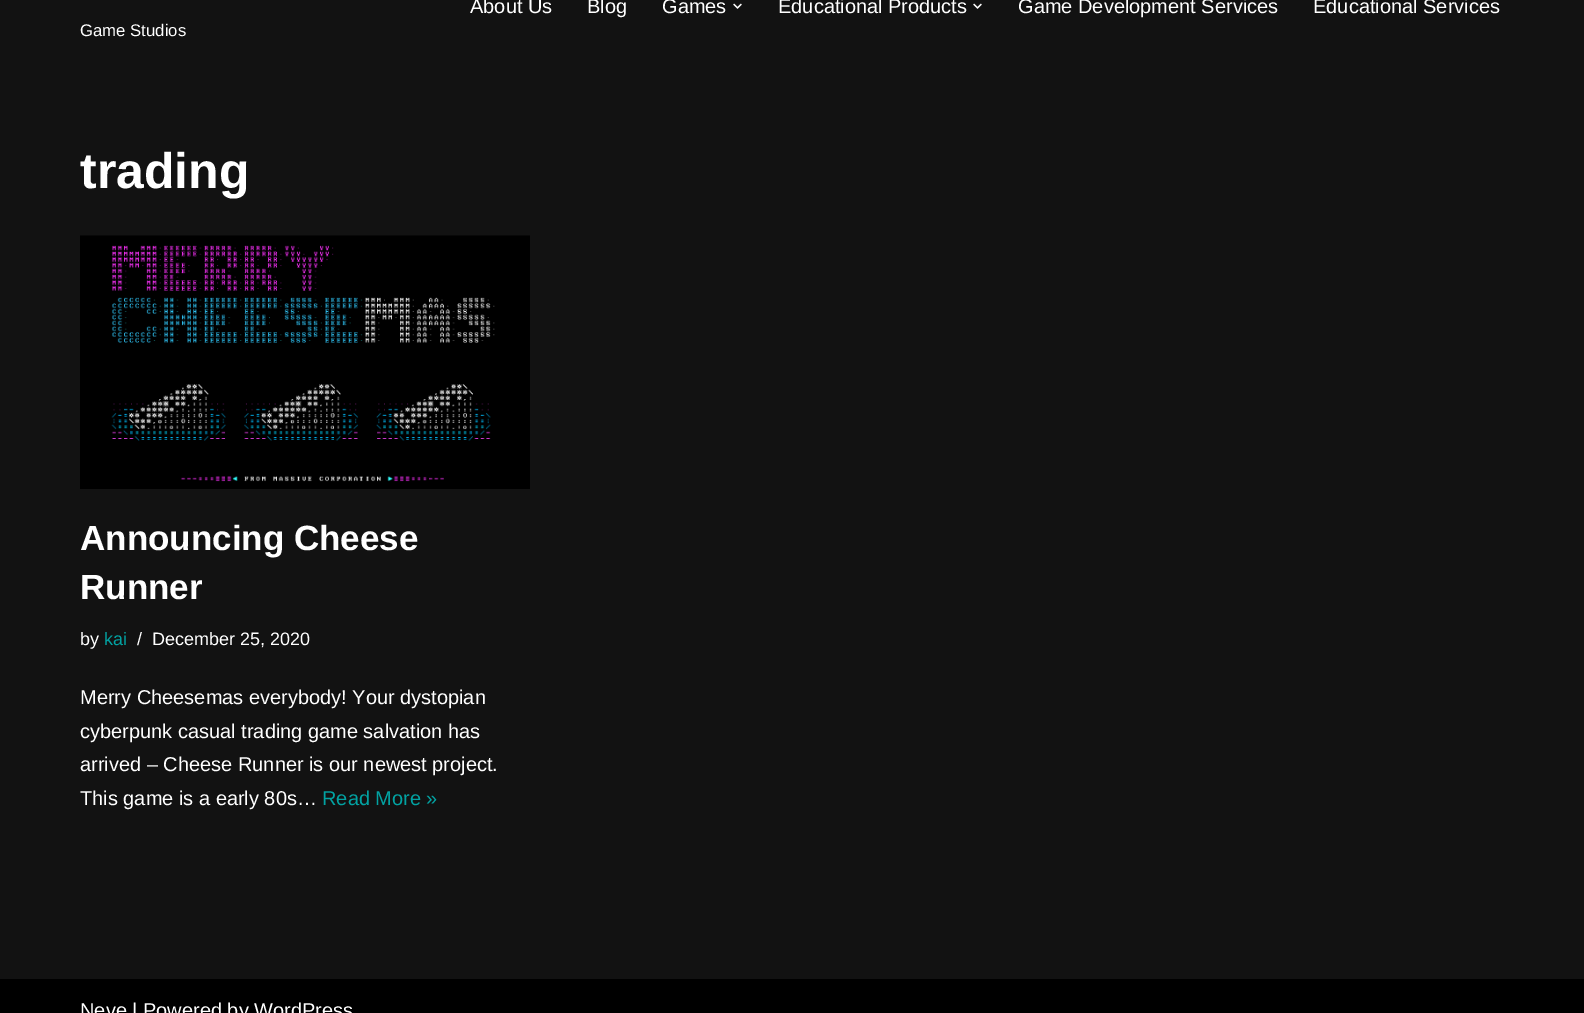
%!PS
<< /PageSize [1584 1013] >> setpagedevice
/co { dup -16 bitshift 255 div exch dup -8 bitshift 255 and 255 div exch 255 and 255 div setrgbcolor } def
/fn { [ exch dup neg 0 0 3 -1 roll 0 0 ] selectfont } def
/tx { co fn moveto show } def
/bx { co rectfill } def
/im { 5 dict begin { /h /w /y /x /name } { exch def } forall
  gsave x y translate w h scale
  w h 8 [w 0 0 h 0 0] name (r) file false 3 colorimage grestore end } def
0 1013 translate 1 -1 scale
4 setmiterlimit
0 0 1584 1013 16#121212 bx
(media/1.raw) 733 3 9 6 im
(media/1.raw) 973 3 9 6 im
(media/2.raw) 80 235 450 254 im
0 979 1584 34 16#000000 bx
(About Us) 470 13 /LiberationSans-Regular 20 16#FFFFFF tx
(Blog) 587 13 /LiberationSans-Regular 20 16#FFFFFF tx
(Games) 662 13 /LiberationSans-Regular 20 16#FFFFFF tx
(Educational Products) 778 13 /LiberationSans-Regular 20 16#FFFFFF tx
(Game Development Services) 1018 13 /LiberationSans-Regular 20 16#FFFFFF tx
(Educational Services) 1313 13 /LiberationSans-Regular 20 16#FFFFFF tx
(Game Studios) 80 36 /LiberationSans-Regular 16.75 16#FFFFFF tx
(trading) 80 188 /LiberationSans-Bold 50 16#FFFFFF tx
(Announcing Cheese) 80 550 /LiberationSans-Bold 35 16#FFFFFF tx
(Runner) 80 599 /LiberationSans-Bold 35 16#FFFFFF tx
(by) 80 645 /LiberationSans-Regular 18 16#FFFFFF tx
(kai) 104 645 /LiberationSans-Regular 18 16#02A2A2 tx
(/) 137 645 /LiberationSans-Regular 18 16#FFFFFF tx
(December 25, 2020) 152 645 /LiberationSans-Regular 18 16#FFFFFF tx
(Merry Cheesemas everybody! Your dystopian) 80 704 /LiberationSans-Regular 20 16#FFFFFF tx
(cyberpunk casual trading game salvation has) 80 738 /LiberationSans-Regular 20 16#FFFFFF tx
(arrived – Cheese Runner is our newest project.) 80 771 /LiberationSans-Regular 20 16#FFFFFF tx
(This game is a early 80s…) 80 805 /LiberationSans-Regular 20 16#FFFFFF tx
(Read More ») 322 805 /LiberationSans-Regular 20 16#02A2A2 tx
(Neve | Powered by WordPress) 80 1017 /LiberationSans-Regular 20 16#FFFFFF tx
showpage
